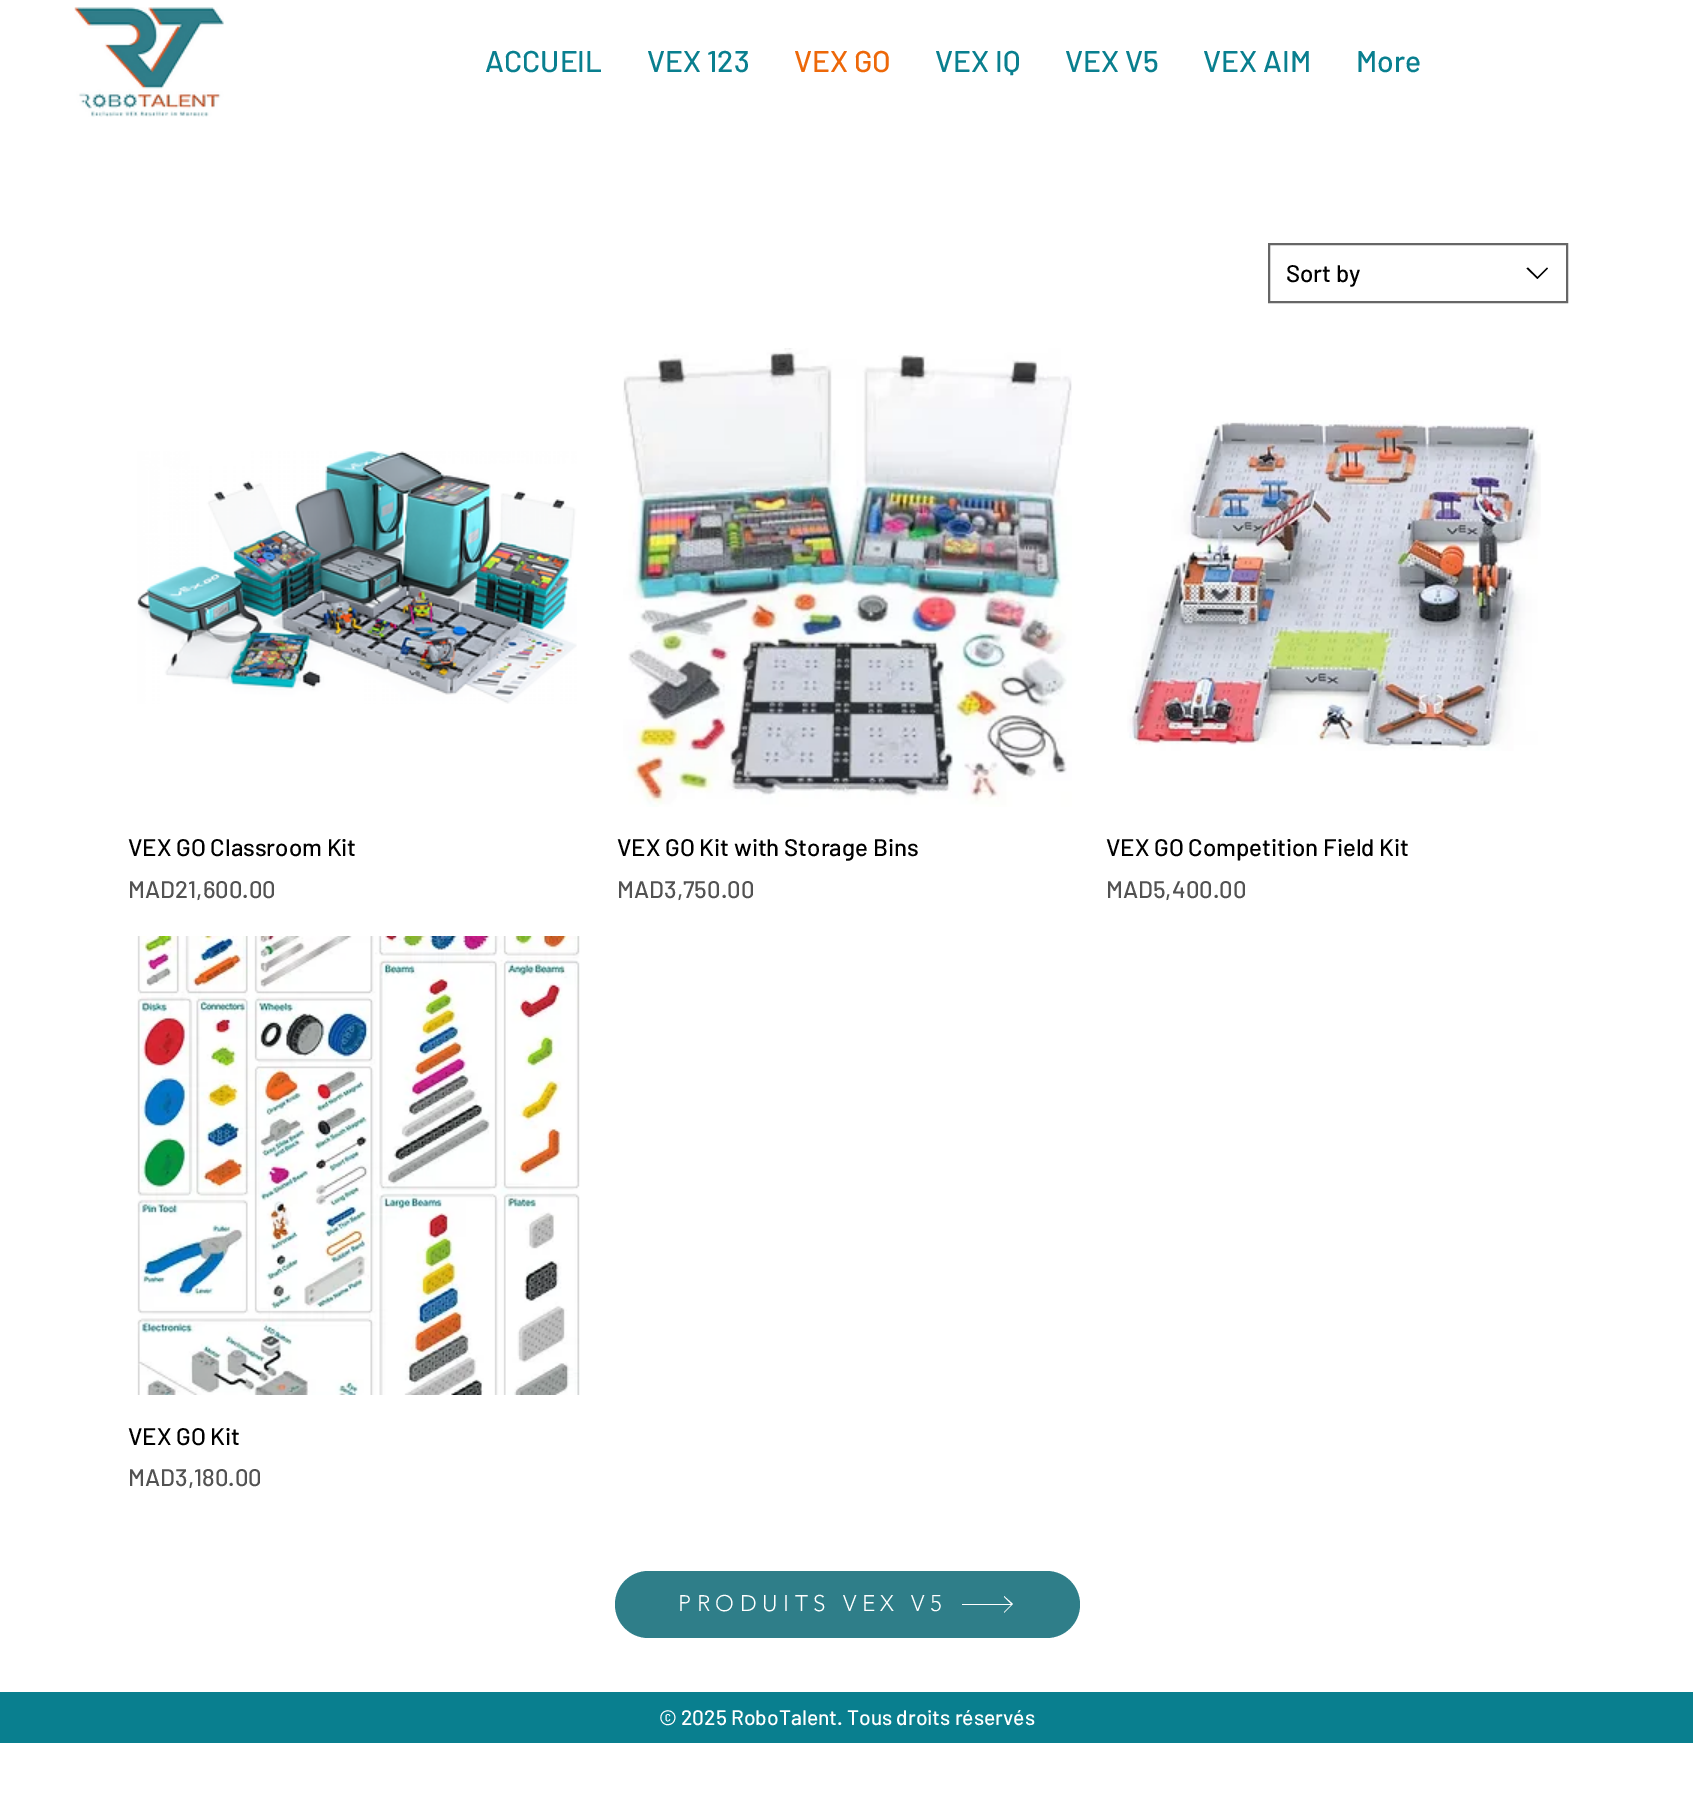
%!PS
<< /PageSize [1693 1794] >> setpagedevice
/mt/moveto load def
/li/lineto load def
/cp/closepath load def
/fl/fill load def
/lw/setlinewidth load def
/co { dup -16 bitshift 255 div exch dup -8 bitshift 255 and 255 div exch 255 and 255 div setrgbcolor } def
/fn { [ exch dup neg 0 0 3 -1 roll 0 0 ] selectfont } def
/tx { co fn moveto show } def
/bx { co rectfill } def
/rr { 5 dict begin { /r /h /w /y /x } { exch def } forall
  x r add y moveto x w add y 2 copy h add r arct x w add y h add x 1 index r arct
  x y h add x y r arct x y 2 copy exch w add exch r arct closepath end } def
/im { 5 dict begin { /h /w /y /x /name } { exch def } forall
  gsave x y translate w h scale
  w h 8 [w 0 0 h 0 0] name (r) file false 3 colorimage grestore end } def
0 1794 translate 1 -1 scale
4 setmiterlimit
0 0 1693 1794 16#FFFFFF bx
(media/1.raw) 74 7 150 110 im
16#666666 co
2 lw
1269 244 298 58 rectstroke
16#000000 co
1547 267.5 mt 1548 268.5 li 1537.5 279 li 1526.5 268.5 li 1528 267.5 li 1537.5 277 li cp eofill
(media/2.raw) 137 451 440 253 im
(media/3.raw) 623 348 449 459 im
(media/4.raw) 1127 420 414 331 im
(media/5.raw) 137 936 443 459 im
16#2F7E89 co
615 1571 465 67 33.5 rr fl
16#FFFFFF co
1004 1596 mt 1004 1597 li 1011 1604 li 962 1604 li 962 1605 li 1011 1605 li 1004 1612 li 1004 1613 li 1013 1604 li cp fl
0 1692 1693 51 16#097F8F bx
(ACCUEIL) 485 72 /Barlow-Medium 30 16#097F8F tx
(VEX 123) 647 72 /Barlow-Medium 30 16#097F8F tx
(VEX GO) 794 72 /Barlow-Medium 30 16#ED6809 tx
(VEX IQ) 935 72 /Barlow-Medium 30 16#097F8F tx
(VEX V5) 1065 72 /Barlow-Medium 30 16#097F8F tx
(VEX AIM) 1203 72 /Barlow-Medium 30 16#097F8F tx
(More) 1356 72 /Barlow-Medium 30 16#097F8F tx
(Sort by) 1286 282 /Barlow-Medium 24 16#000000 tx
(VEX GO Classroom Kit) 128 856 /Barlow-Medium 24 16#000000 tx
(MAD21,600.00) 128 898 /Barlow-Medium 24 16#525252 tx
(VEX GO Kit with Storage Bins) 617 856 /Barlow-Medium 24 16#000000 tx
(MAD3,750.00) 617 898 /Barlow-Medium 24 16#525252 tx
(VEX GO Competition Field Kit) 1106 856 /Barlow-Medium 24 16#000000 tx
(MAD5,400.00) 1106 898 /Barlow-Medium 24 16#525252 tx
(VEX GO Kit) 128 1445 /Barlow-Medium 24 16#000000 tx
(MAD3,180.00) 128 1486 /Barlow-Medium 24 16#525252 tx
/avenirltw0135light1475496-Light 22.5 fn
16#FFFFFF co
678 1611 mt 5.6 0 (PRODUITS VEX V5) ashow
(© 2025 RoboTalent. Tous droits réservés) 659 1725 /Barlow-Medium 21 16#FFFFFF tx
showpage
